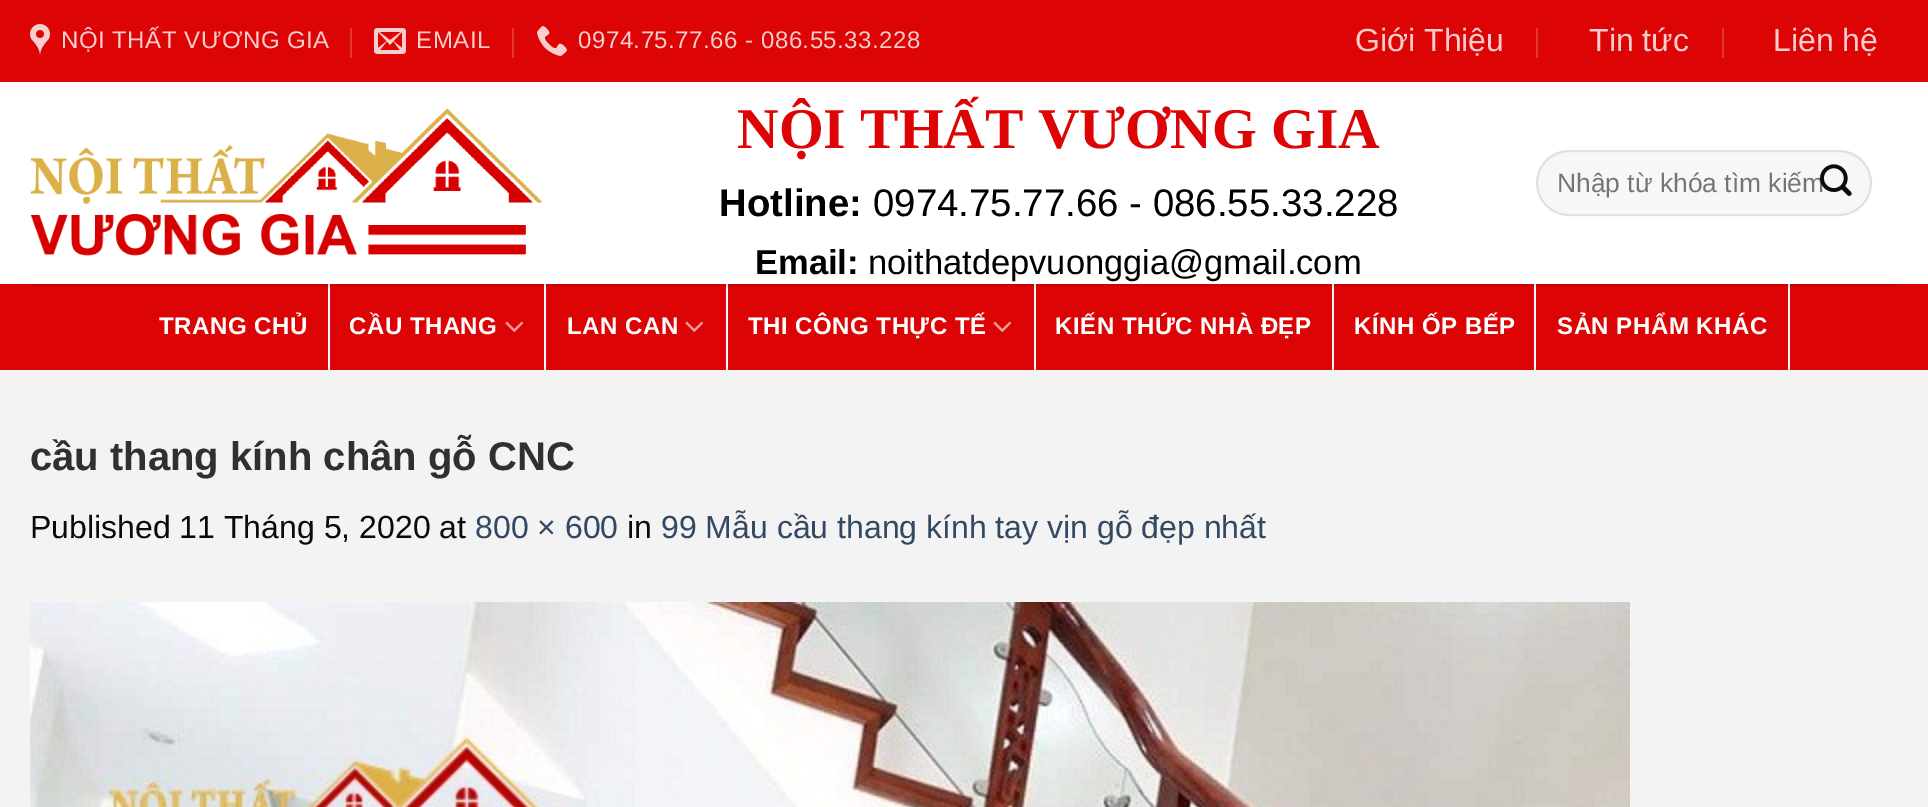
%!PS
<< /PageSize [1928 807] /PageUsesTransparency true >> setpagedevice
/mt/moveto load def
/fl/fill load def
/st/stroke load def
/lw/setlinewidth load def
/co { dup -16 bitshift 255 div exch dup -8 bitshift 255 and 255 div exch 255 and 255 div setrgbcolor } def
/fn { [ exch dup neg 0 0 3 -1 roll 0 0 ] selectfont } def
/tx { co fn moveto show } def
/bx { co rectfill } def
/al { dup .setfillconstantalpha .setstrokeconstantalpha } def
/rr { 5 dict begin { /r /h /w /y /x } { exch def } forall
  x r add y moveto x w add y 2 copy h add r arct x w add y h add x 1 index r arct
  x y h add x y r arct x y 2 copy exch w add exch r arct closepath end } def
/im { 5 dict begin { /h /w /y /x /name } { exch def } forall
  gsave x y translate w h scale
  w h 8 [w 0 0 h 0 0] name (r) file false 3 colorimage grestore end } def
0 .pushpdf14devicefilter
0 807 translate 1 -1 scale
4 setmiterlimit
0 0 1928 807 16#FFFFFF bx
0 0 1928 82 16#DC0404 bx
(media/1.raw) 30 24 20 32 im
350 28 2 30 16#E33636 bx
(media/2.raw) 374 28 32 26 im
512 28 2 30 16#E33636 bx
(media/3.raw) 537 26 30 30 im
1536 28 2 30 16#E33636 bx
1722 28 2 30 16#E33636 bx
(media/4.raw) 30 108 512 148 im
16#F7F7F7 co
1536 150 336 66 33 rr fl
0.09 al
16#000000 co
2 lw
1537 151 334 64 32 rr st
1 al
0 284 1928 86 16#DC0404 bx
30 284 1868 2 16#C70505 bx
328 284 2 86 16#FFFFFF bx
328 284 2 2 16#E7E7E7 bx
544 284 2 86 16#FFFFFF bx
544 284 2 2 16#E7E7E7 bx
(media/6.raw) 505 321 19 11 im
726 284 2 86 16#FFFFFF bx
726 284 2 2 16#E7E7E7 bx
(media/6.raw) 685 321 19 11 im
1034 284 2 86 16#FFFFFF bx
1034 284 2 2 16#E7E7E7 bx
(media/6.raw) 993 321 19 11 im
1332 284 2 86 16#FFFFFF bx
1332 284 2 2 16#E7E7E7 bx
1534 284 2 86 16#FFFFFF bx
1534 284 2 2 16#E7E7E7 bx
1788 284 2 86 16#FFFFFF bx
1788 284 2 2 16#E7E7E7 bx
0 370 1928 437 16#F3F3F3 bx
(media/7.raw) 30 602 1600 205 im
/LiberationSans-Regular 24 fn
16#F8CDCD co
61 48 mt .5 0 (NỘI THẤT VƯƠNG GIA) ashow
416 48 mt .5 0 (EMAIL) ashow
578 48 mt .5 0 (0974.75.77.66 - 086.55.33.228) ashow
(Giới Thiệu) 1355 51 /LiberationSans-Regular 32 16#F8CDCD tx
(Tin tức) 1589 51 /LiberationSans-Regular 32 16#F8CDCD tx
(Liên hệ) 1773 51 /LiberationSans-Regular 32 16#F8CDCD tx
(NỘI THẤT VƯƠNG GIA) 737 148 /LiberationSerif-Bold 57.6 16#DC0404 tx
(Hotline:) 719 216 /LiberationSans-Bold 38.4 16#000000 tx
(0974.75.77.66 - 086.55.33.228) 873 216 /LiberationSans-Regular 38.4 16#000000 tx
(Email:) 755 274 /LiberationSans-Bold 34.5 16#000000 tx
(noithatdepvuonggia@gmail.com) 868 274 /LiberationSans-Regular 34.5 16#000000 tx
(Nhập từ khóa tìm kiếm) 1557 192 /LiberationSans-Regular 26.4 16#757575 tx
(media/5.raw) 1820 164 32 32 im
/LiberationSans-Bold 24 fn
16#FFFFFF co
159 334 mt .5 0 (TRANG CHỦ) ashow
349 334 mt .5 0 (CẦU THANG) ashow
567 334 mt .5 0 (LAN CAN) ashow
748 334 mt .5 0 (THI CÔNG THỰC TẾ) ashow
1055 334 mt .5 0 (KIẾN THỨC NHÀ ĐẸP) ashow
1354 334 mt .5 0 (KÍNH ỐP BẾP) ashow
1557 334 mt .5 0 (SẢN PHẨM KHÁC) ashow
(cầu thang kính chân gỗ CNC) 30 470 /LiberationSans-Bold 40 16#303030 tx
(Published 11 Tháng 5, 2020 at) 30 538 /LiberationSans-Regular 32 16#0A0A0A tx
(800 × 600) 475 538 /LiberationSans-Regular 32 16#334862 tx
(in) 627 538 /LiberationSans-Regular 32 16#0A0A0A tx
(99 Mẫu cầu thang kính tay vịn gỗ đẹp nhất) 661 538 /LiberationSans-Regular 32 16#334862 tx
.poppdf14devicefilter showpage
